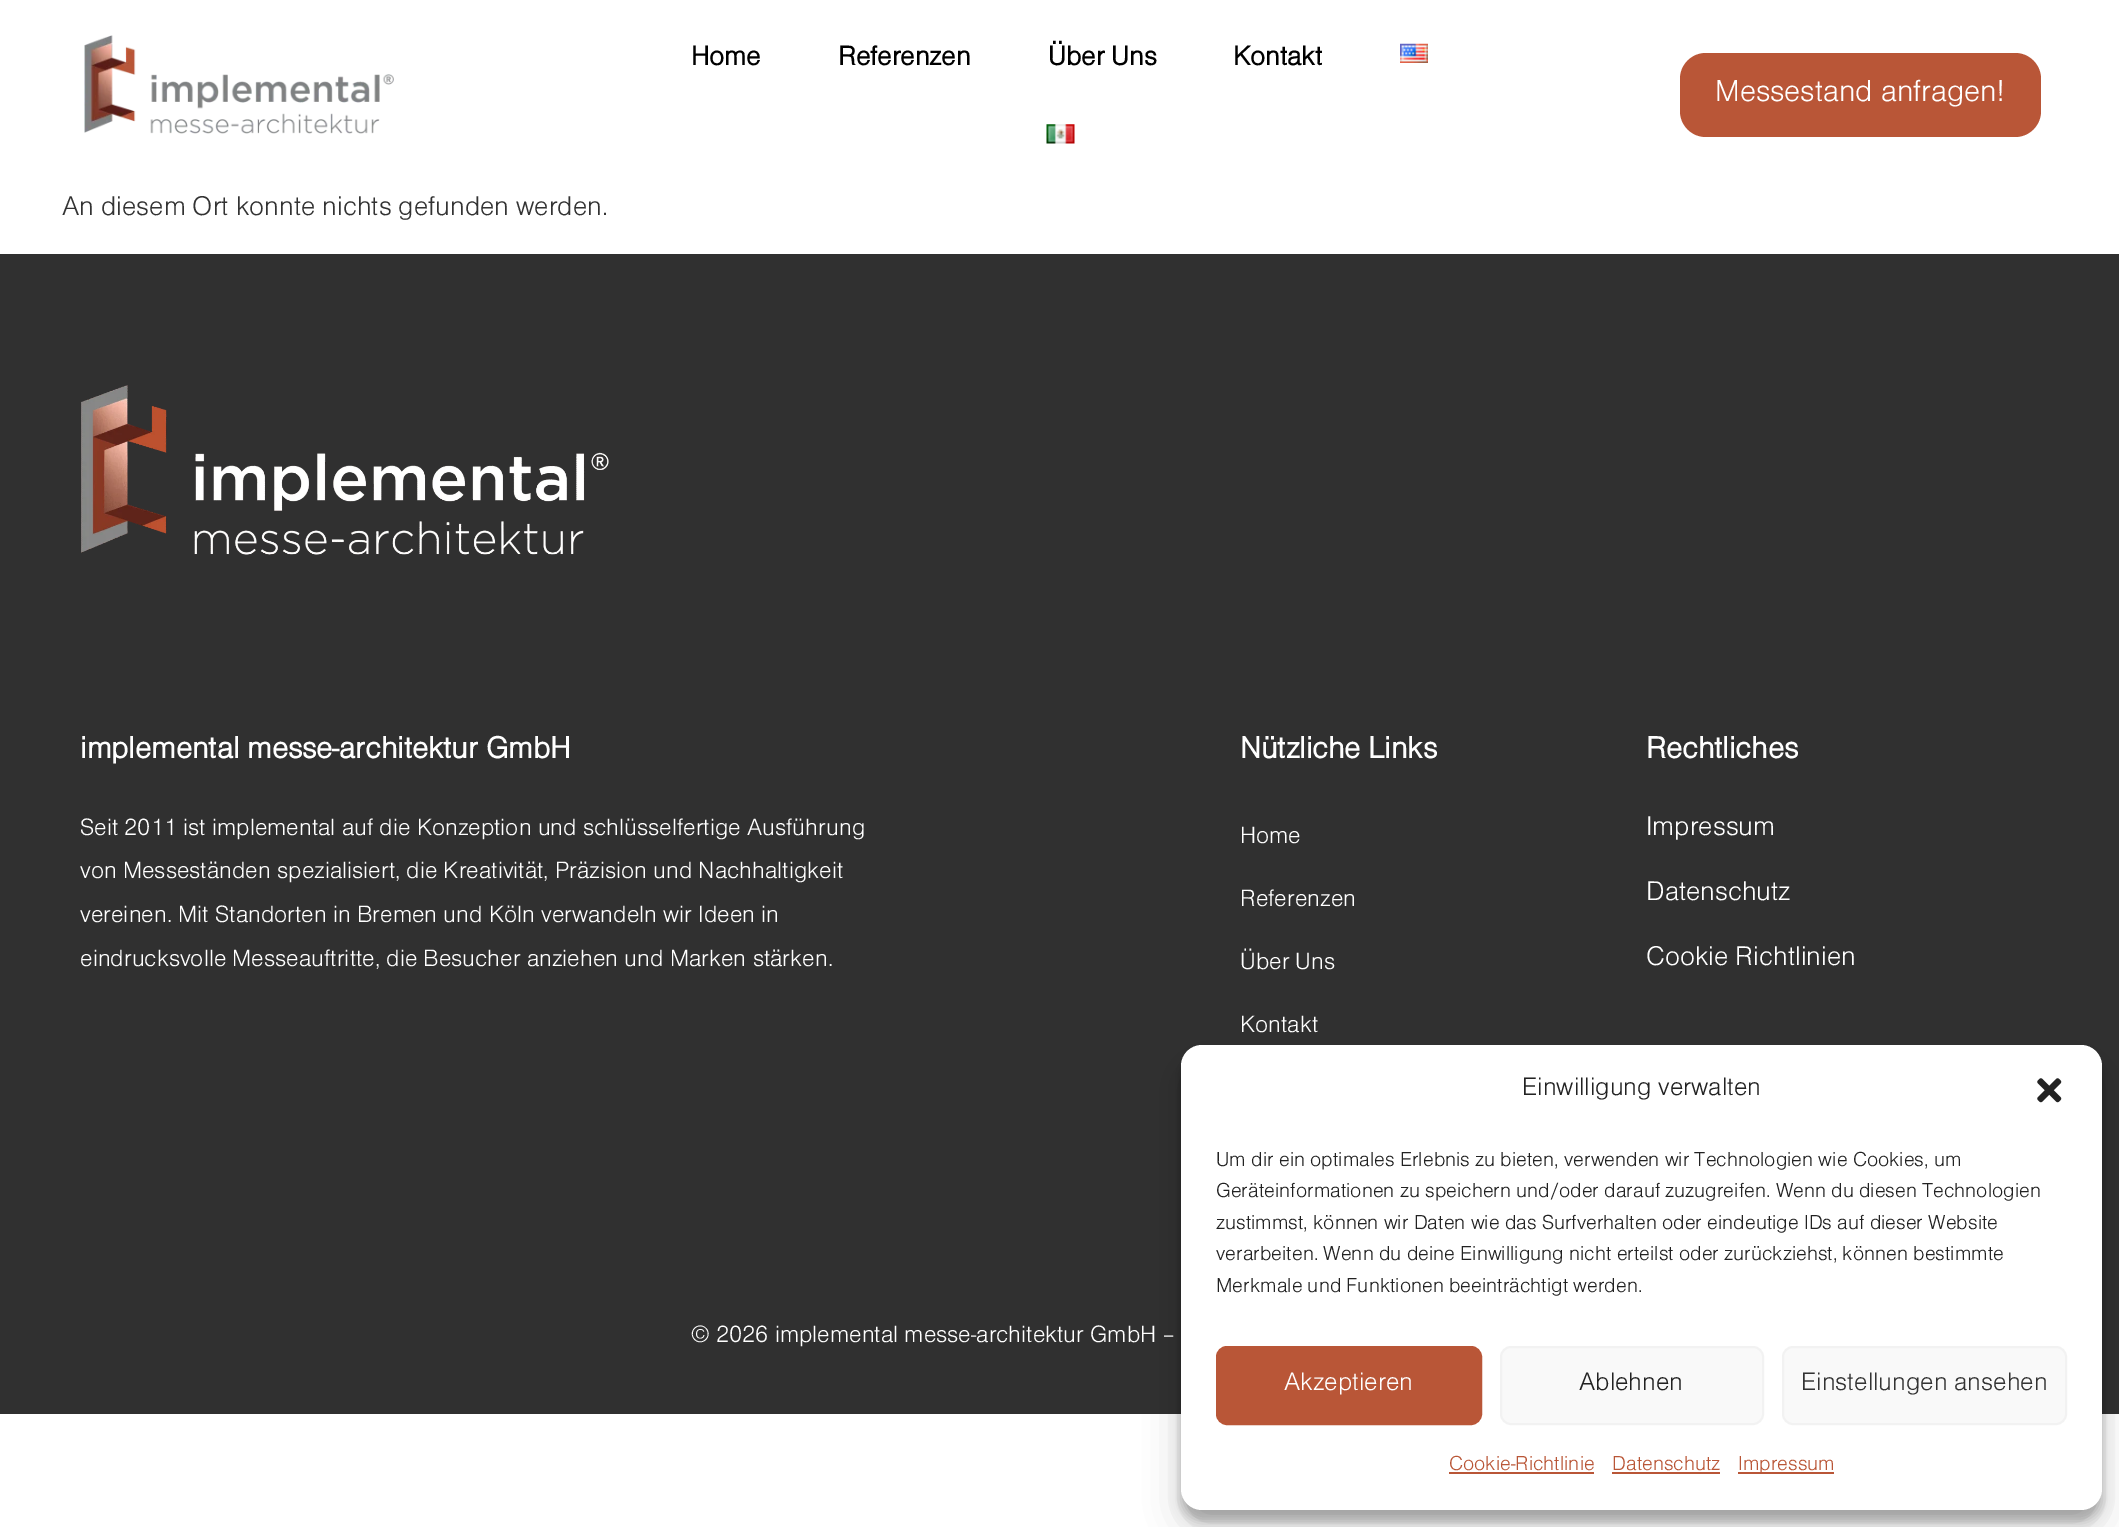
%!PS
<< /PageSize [2119 1527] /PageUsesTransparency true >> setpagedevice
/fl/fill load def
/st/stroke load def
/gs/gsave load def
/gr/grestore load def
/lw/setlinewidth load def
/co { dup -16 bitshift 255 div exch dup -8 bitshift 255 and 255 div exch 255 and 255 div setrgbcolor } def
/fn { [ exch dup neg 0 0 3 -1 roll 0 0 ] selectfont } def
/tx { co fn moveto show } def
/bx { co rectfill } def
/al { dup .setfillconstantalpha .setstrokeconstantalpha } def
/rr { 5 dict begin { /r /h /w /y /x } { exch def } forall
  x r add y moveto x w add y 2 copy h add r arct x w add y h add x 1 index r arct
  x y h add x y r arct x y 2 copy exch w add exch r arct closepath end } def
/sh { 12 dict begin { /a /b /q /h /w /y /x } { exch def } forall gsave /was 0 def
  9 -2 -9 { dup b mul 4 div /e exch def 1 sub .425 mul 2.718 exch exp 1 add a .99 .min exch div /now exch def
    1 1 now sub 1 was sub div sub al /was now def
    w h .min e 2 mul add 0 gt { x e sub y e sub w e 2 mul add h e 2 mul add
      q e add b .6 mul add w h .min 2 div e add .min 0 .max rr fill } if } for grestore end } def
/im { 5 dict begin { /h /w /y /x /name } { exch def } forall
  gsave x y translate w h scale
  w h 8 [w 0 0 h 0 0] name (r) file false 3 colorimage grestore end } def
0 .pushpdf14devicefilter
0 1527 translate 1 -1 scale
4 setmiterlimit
0 0 2119 1527 16#FFFFFF bx
(media/1.raw) 84 35 310 99 im
(media/2.raw) 1400 43 28 20 im
(media/3.raw) 1046 124 29 20 im
16#B95637 co
1680 53 361 84 26 rr fl
0 254 2119 1160 16#303030 bx
(media/4.raw) 81 385 528 170 im
16#000000 co
1181 1055 921 466 21 5 .23 sh
1181 1062 921 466 21 17.5 .19 sh
16#FFFFFF co
1181 1045 921 465 21 rr fl
(media/5.raw) 2037 1078 25 25 im
16#B95637 co
1217 1347 264 77 10 rr gs fl gr
2 lw
st
16#F9F9F9 co
1501 1347 262 77 10 rr gs fl gr
16#F2F2F2 co
st
16#F9F9F9 co
1783 1347 283 77 10 rr gs fl gr
16#F2F2F2 co
st
1449 1472 145 2 16#B95637 bx
1612 1472 108 2 16#B95637 bx
1738 1472 96 2 16#B95637 bx
(Home) 691 65 /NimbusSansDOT-Bold 28 16#000000 tx
(Referenzen) 838 65 /NimbusSansDOT-Bold 28 16#000000 tx
(Über Uns) 1048 65 /NimbusSansDOT-Bold 28 16#000000 tx
(Kontakt) 1233 65 /NimbusSansDOT-Bold 28 16#000000 tx
(Messestand anfragen!) 1715 101 /NimbusSansDOT-Light 31.5 16#FFFFFF tx
(An diesem Ort konnte nichts gefunden werden.) 62 215 /NimbusSansDOT-Light 28 16#333333 tx
(implemental messe-architektur GmbH) 80 758 /NimbusSansDOT-Bold 31.5 16#FFFFFF tx
(Seit 2011 ist implemental auf die Konzeption und schlüsselfertige Ausführung) 80 835 /NimbusSansDOT-Light 24.5 16#FFFFFF tx
(von Messeständen spezialisiert, die Kreativität, Präzision und Nachhaltigkeit) 80 878 /NimbusSansDOT-Light 24.5 16#FFFFFF tx
(vereinen. Mit Standorten in Bremen und Köln verwandeln wir Ideen in) 80 922 /NimbusSansDOT-Light 24.5 16#FFFFFF tx
(eindrucksvolle Messeauftritte, die Besucher anziehen und Marken stärken.) 80 966 /NimbusSansDOT-Light 24.5 16#FFFFFF tx
(Nützliche Links) 1240 758 /NimbusSansDOT-Bold 31.5 16#FFFFFF tx
(Home) 1240 843 /NimbusSansDOT-Light 24.5 16#FFFFFF tx
(Referenzen) 1240 906 /NimbusSansDOT-Light 24.5 16#FFFFFF tx
(Über Uns) 1240 969 /NimbusSansDOT-Light 24.5 16#FFFFFF tx
(Kontakt) 1240 1032 /NimbusSansDOT-Light 24.5 16#FFFFFF tx
(Rechtliches) 1646 758 /NimbusSansDOT-Bold 31.5 16#FFFFFF tx
(Impressum) 1646 835 /NimbusSansDOT-Light 28 16#FFFFFF tx
(Datenschutz) 1646 900 /NimbusSansDOT-Light 28 16#FFFFFF tx
(Cookie Richtlinien) 1646 965 /NimbusSansDOT-Light 28 16#FFFFFF tx
(© 2026 implemental messe-architektur GmbH –) 691 1342 /NimbusSansDOT-Light 24.5 16#FFFFFF tx
(Einwilligung verwalten) 1522 1095 /NimbusSansDOT-Light 26.25 16#222222 tx
(Um dir ein optimales Erlebnis zu bieten, verwenden wir Technologien wie Cookies, um) 1216 1166 /NimbusSansDOT-Light 21 16#222222 tx
(Geräteinformationen zu speichern und/oder darauf zuzugreifen. Wenn du diesen Technologien) 1216 1197 /NimbusSansDOT-Light 21 16#222222 tx
(zustimmst, können wir Daten wie das Surfverhalten oder eindeutige IDs auf dieser Website) 1216 1229 /NimbusSansDOT-Light 21 16#222222 tx
(verarbeiten. Wenn du deine Einwilligung nicht erteilst oder zurückziehst, können bestimmte) 1216 1260 /NimbusSansDOT-Light 21 16#222222 tx
(Merkmale und Funktionen beeinträchtigt werden.) 1216 1292 /NimbusSansDOT-Light 21 16#222222 tx
(Akzeptieren) 1284 1390 /NimbusSansDOT-Light 26.25 16#FFFFFF tx
(Ablehnen) 1579 1390 /NimbusSansDOT-Light 26.25 16#222222 tx
(Einstellungen ansehen) 1801 1390 /NimbusSansDOT-Light 26.25 16#333333 tx
(Cookie-Richtlinie) 1449 1470 /NimbusSansDOT-Light 21 16#B95637 tx
(Datenschutz) 1612 1470 /NimbusSansDOT-Light 21 16#B95637 tx
(Impressum) 1738 1470 /NimbusSansDOT-Light 21 16#B95637 tx
.poppdf14devicefilter showpage
